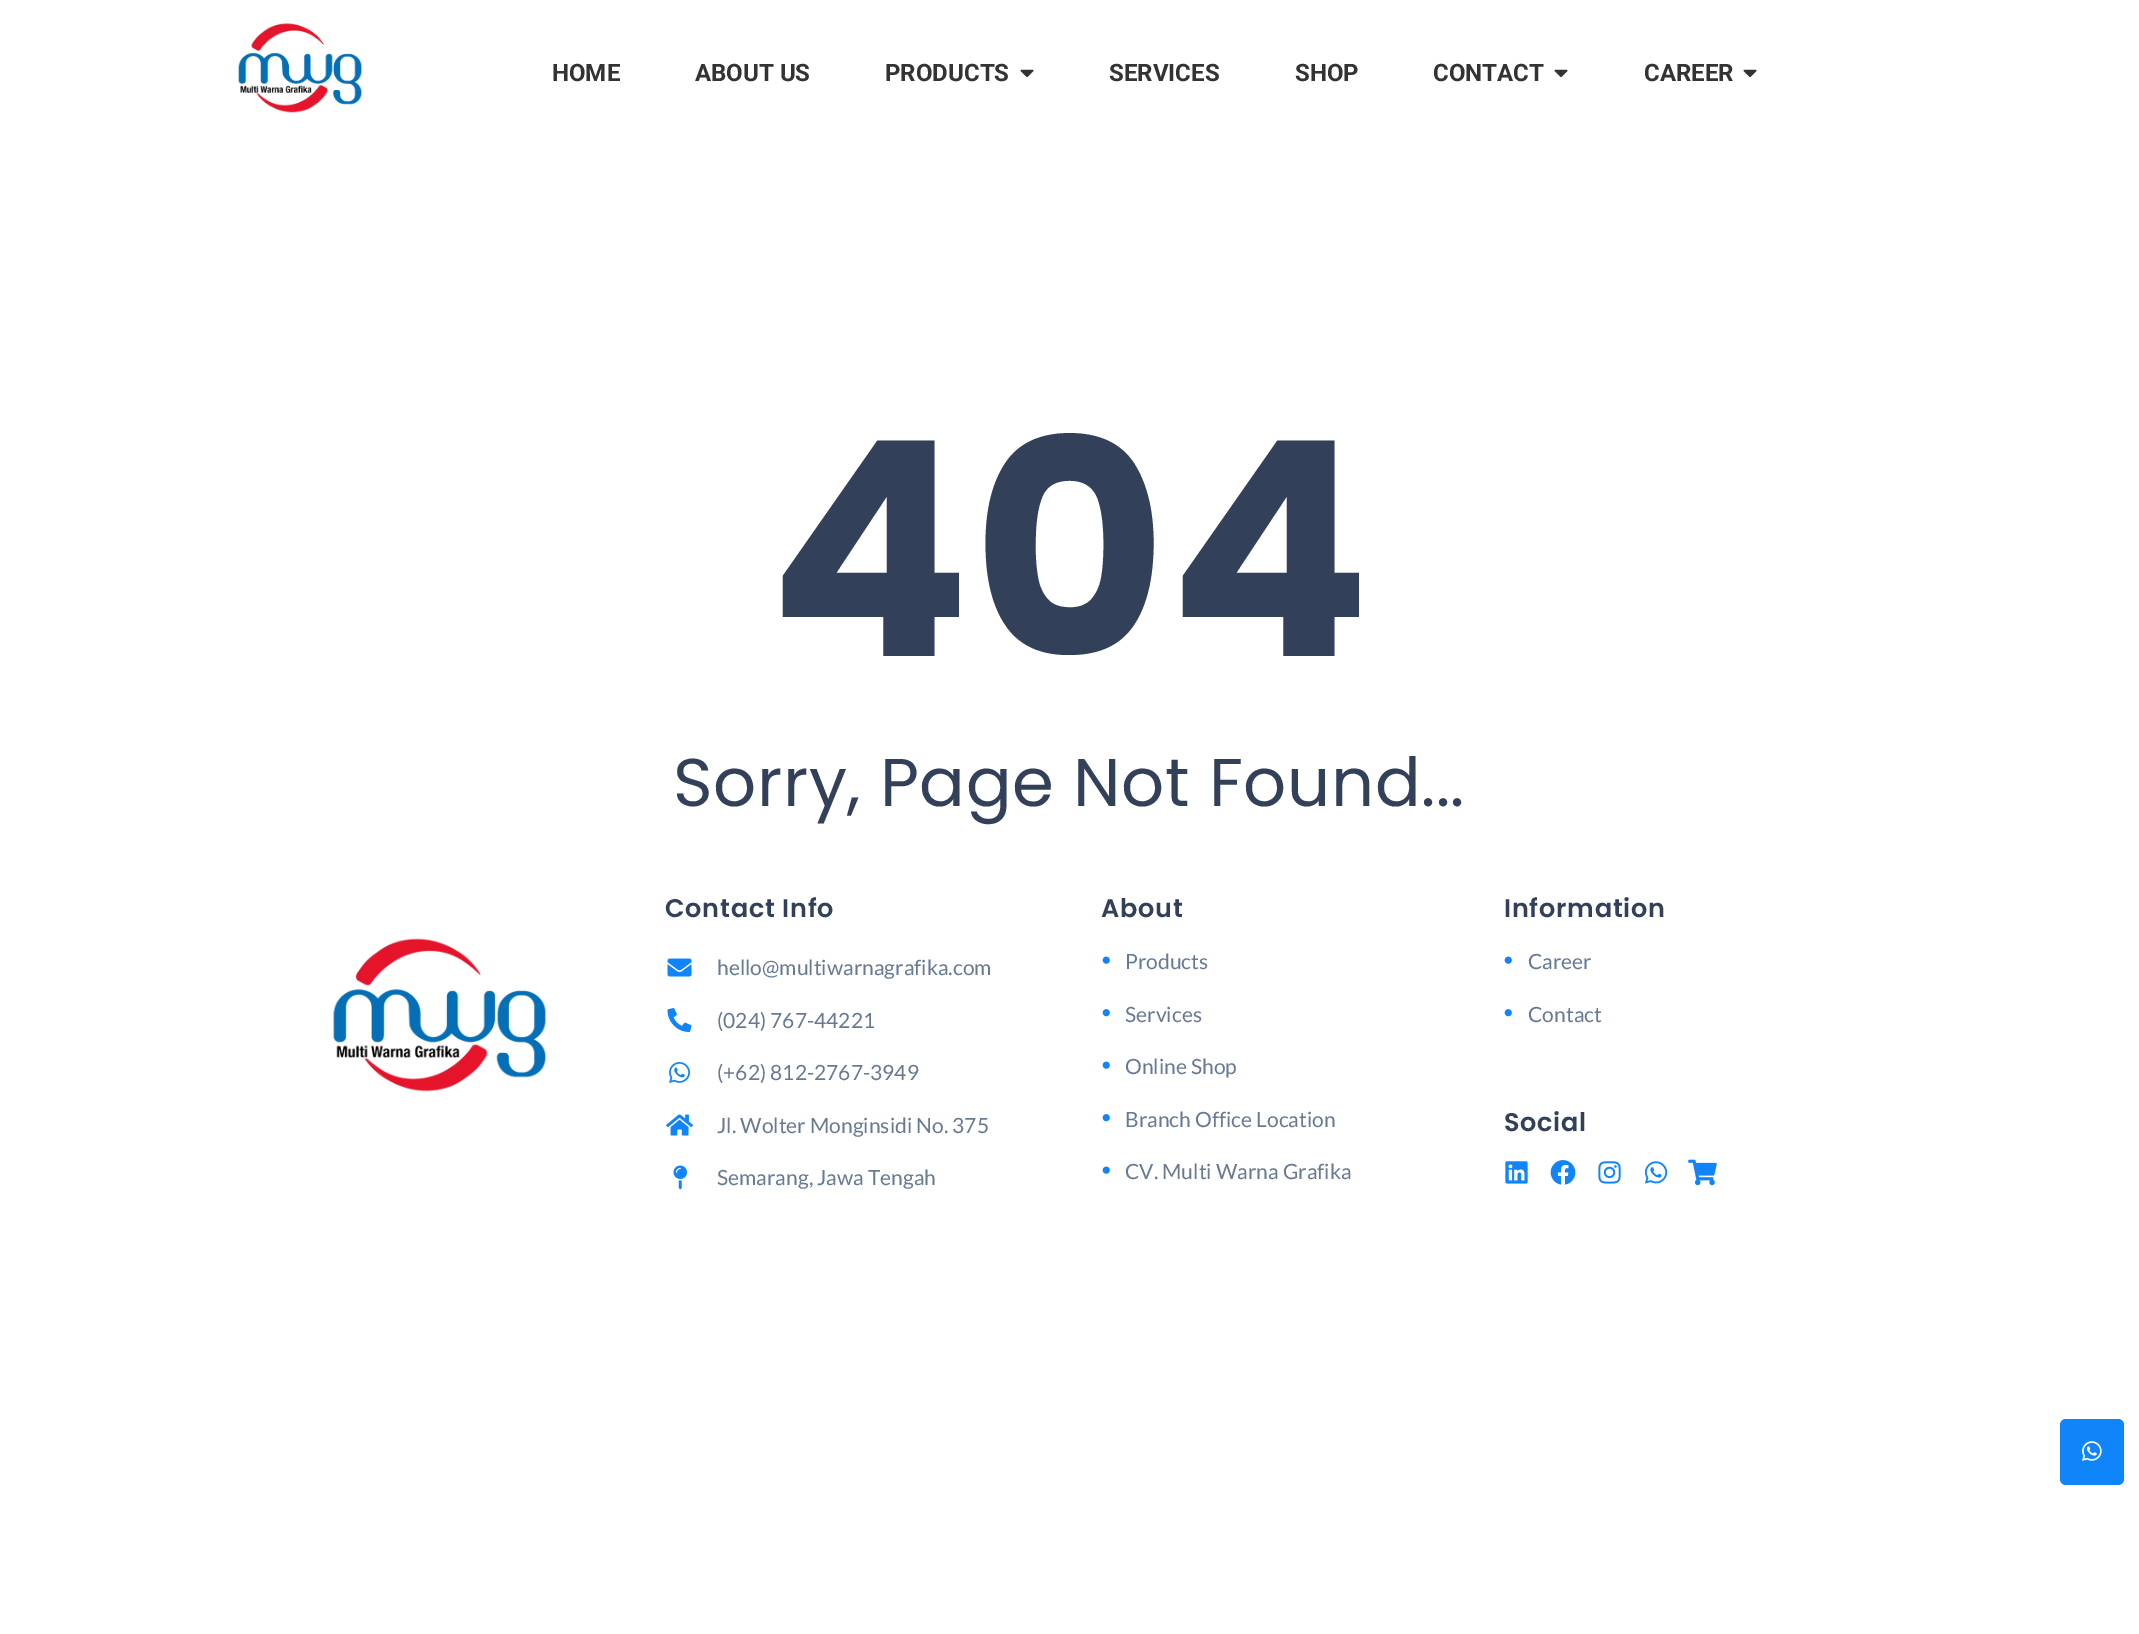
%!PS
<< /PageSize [2139 1634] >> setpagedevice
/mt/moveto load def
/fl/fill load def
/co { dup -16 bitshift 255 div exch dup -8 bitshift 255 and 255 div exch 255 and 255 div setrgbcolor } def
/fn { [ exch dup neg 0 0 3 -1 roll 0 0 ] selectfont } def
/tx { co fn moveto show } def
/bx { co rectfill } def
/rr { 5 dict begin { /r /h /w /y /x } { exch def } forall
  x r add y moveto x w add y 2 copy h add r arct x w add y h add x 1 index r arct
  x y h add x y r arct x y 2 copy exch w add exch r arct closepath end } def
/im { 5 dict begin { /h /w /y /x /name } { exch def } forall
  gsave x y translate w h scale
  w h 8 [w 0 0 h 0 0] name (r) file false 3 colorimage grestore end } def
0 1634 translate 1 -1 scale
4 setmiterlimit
0 0 2139 1634 16#FFFFFF bx
(media/1.raw) 238 23 124 90 im
(media/2.raw) 1020 69 14 9 im
(media/2.raw) 1554 69 14 9 im
(media/2.raw) 1743 69 14 9 im
(media/3.raw) 333 938 213 154 im
(media/4.raw) 667 958 25 19 im
(media/5.raw) 667 1008 25 24 im
(media/6.raw) 669 1062 21 21 im
(media/7.raw) 666 1114 27 22 im
(media/8.raw) 673 1165 14 25 im
(media/9.raw) 1102 956 8 8 im
(media/10.raw) 1102 1009 8 8 im
(media/9.raw) 1102 1061 8 8 im
(media/10.raw) 1102 1114 8 8 im
(media/9.raw) 1102 1166 8 8 im
(media/9.raw) 1504 956 8 8 im
(media/10.raw) 1504 1009 8 8 im
(media/11.raw) 1505 1161 23 23 im
(media/12.raw) 1550 1160 26 25 im
(media/13.raw) 1598 1161 23 23 im
(media/14.raw) 1644 1161 24 23 im
(media/15.raw) 1688 1159 29 27 im
16#1085FA co
2060 1419 64 66 6 rr fl
(media/16.raw) 2082 1441 20 20 im
(HOME) 552 81 /Roboto-Bold 24 16#333333 tx
(ABOUT US) 695 81 /Roboto-Bold 24 16#333333 tx
(PRODUCTS) 885 81 /Roboto-Bold 24 16#333333 tx
(SERVICES) 1109 81 /Roboto-Bold 24 16#333333 tx
(SHOP) 1295 81 /Roboto-Bold 24 16#333333 tx
(CONTACT) 1433 81 /Roboto-Bold 24 16#333333 tx
(CAREER) 1644 81 /Roboto-Bold 24 16#333333 tx
/Poppins-Bold 300 fn
16#324059 co
768 656 mt .6 0 (404) ashow
/Poppins-Regular 67.5 fn
673 806 mt .6 0 (Sorry, Page Not Found...) ashow
/Poppins-SemiBold 25.5 fn
665 917 mt .75 0 (Contact Info) ashow
(hello@multiwarnagrafika.com) 717 975 /Lato-Regular 21 16#677993 tx
(\(024\) 767-44221) 717 1028 /Lato-Regular 21 16#677993 tx
(\(+62\) 812-2767-3949) 717 1080 /Lato-Regular 21 16#677993 tx
(Jl. Wolter Monginsidi No. 375) 717 1133 /Lato-Regular 21 16#677993 tx
(Semarang, Jawa Tengah) 717 1185 /Lato-Regular 21 16#677993 tx
/Poppins-SemiBold 25.5 fn
16#324059 co
1101 917 mt .75 0 (About) ashow
(Products) 1125 969 /Lato-Regular 21 16#677993 tx
(Services) 1125 1022 /Lato-Regular 21 16#677993 tx
(Online Shop) 1125 1074 /Lato-Regular 21 16#677993 tx
(Branch Office Location) 1125 1127 /Lato-Regular 21 16#677993 tx
(CV. Multi Warna Grafika) 1125 1179 /Lato-Regular 21 16#677993 tx
/Poppins-SemiBold 25.5 fn
16#324059 co
1504 917 mt .75 0 (Information) ashow
(Career) 1528 969 /Lato-Regular 21 16#677993 tx
(Contact) 1528 1022 /Lato-Regular 21 16#677993 tx
/Poppins-SemiBold 25.5 fn
16#324059 co
1504 1131 mt .75 0 (Social) ashow
showpage
